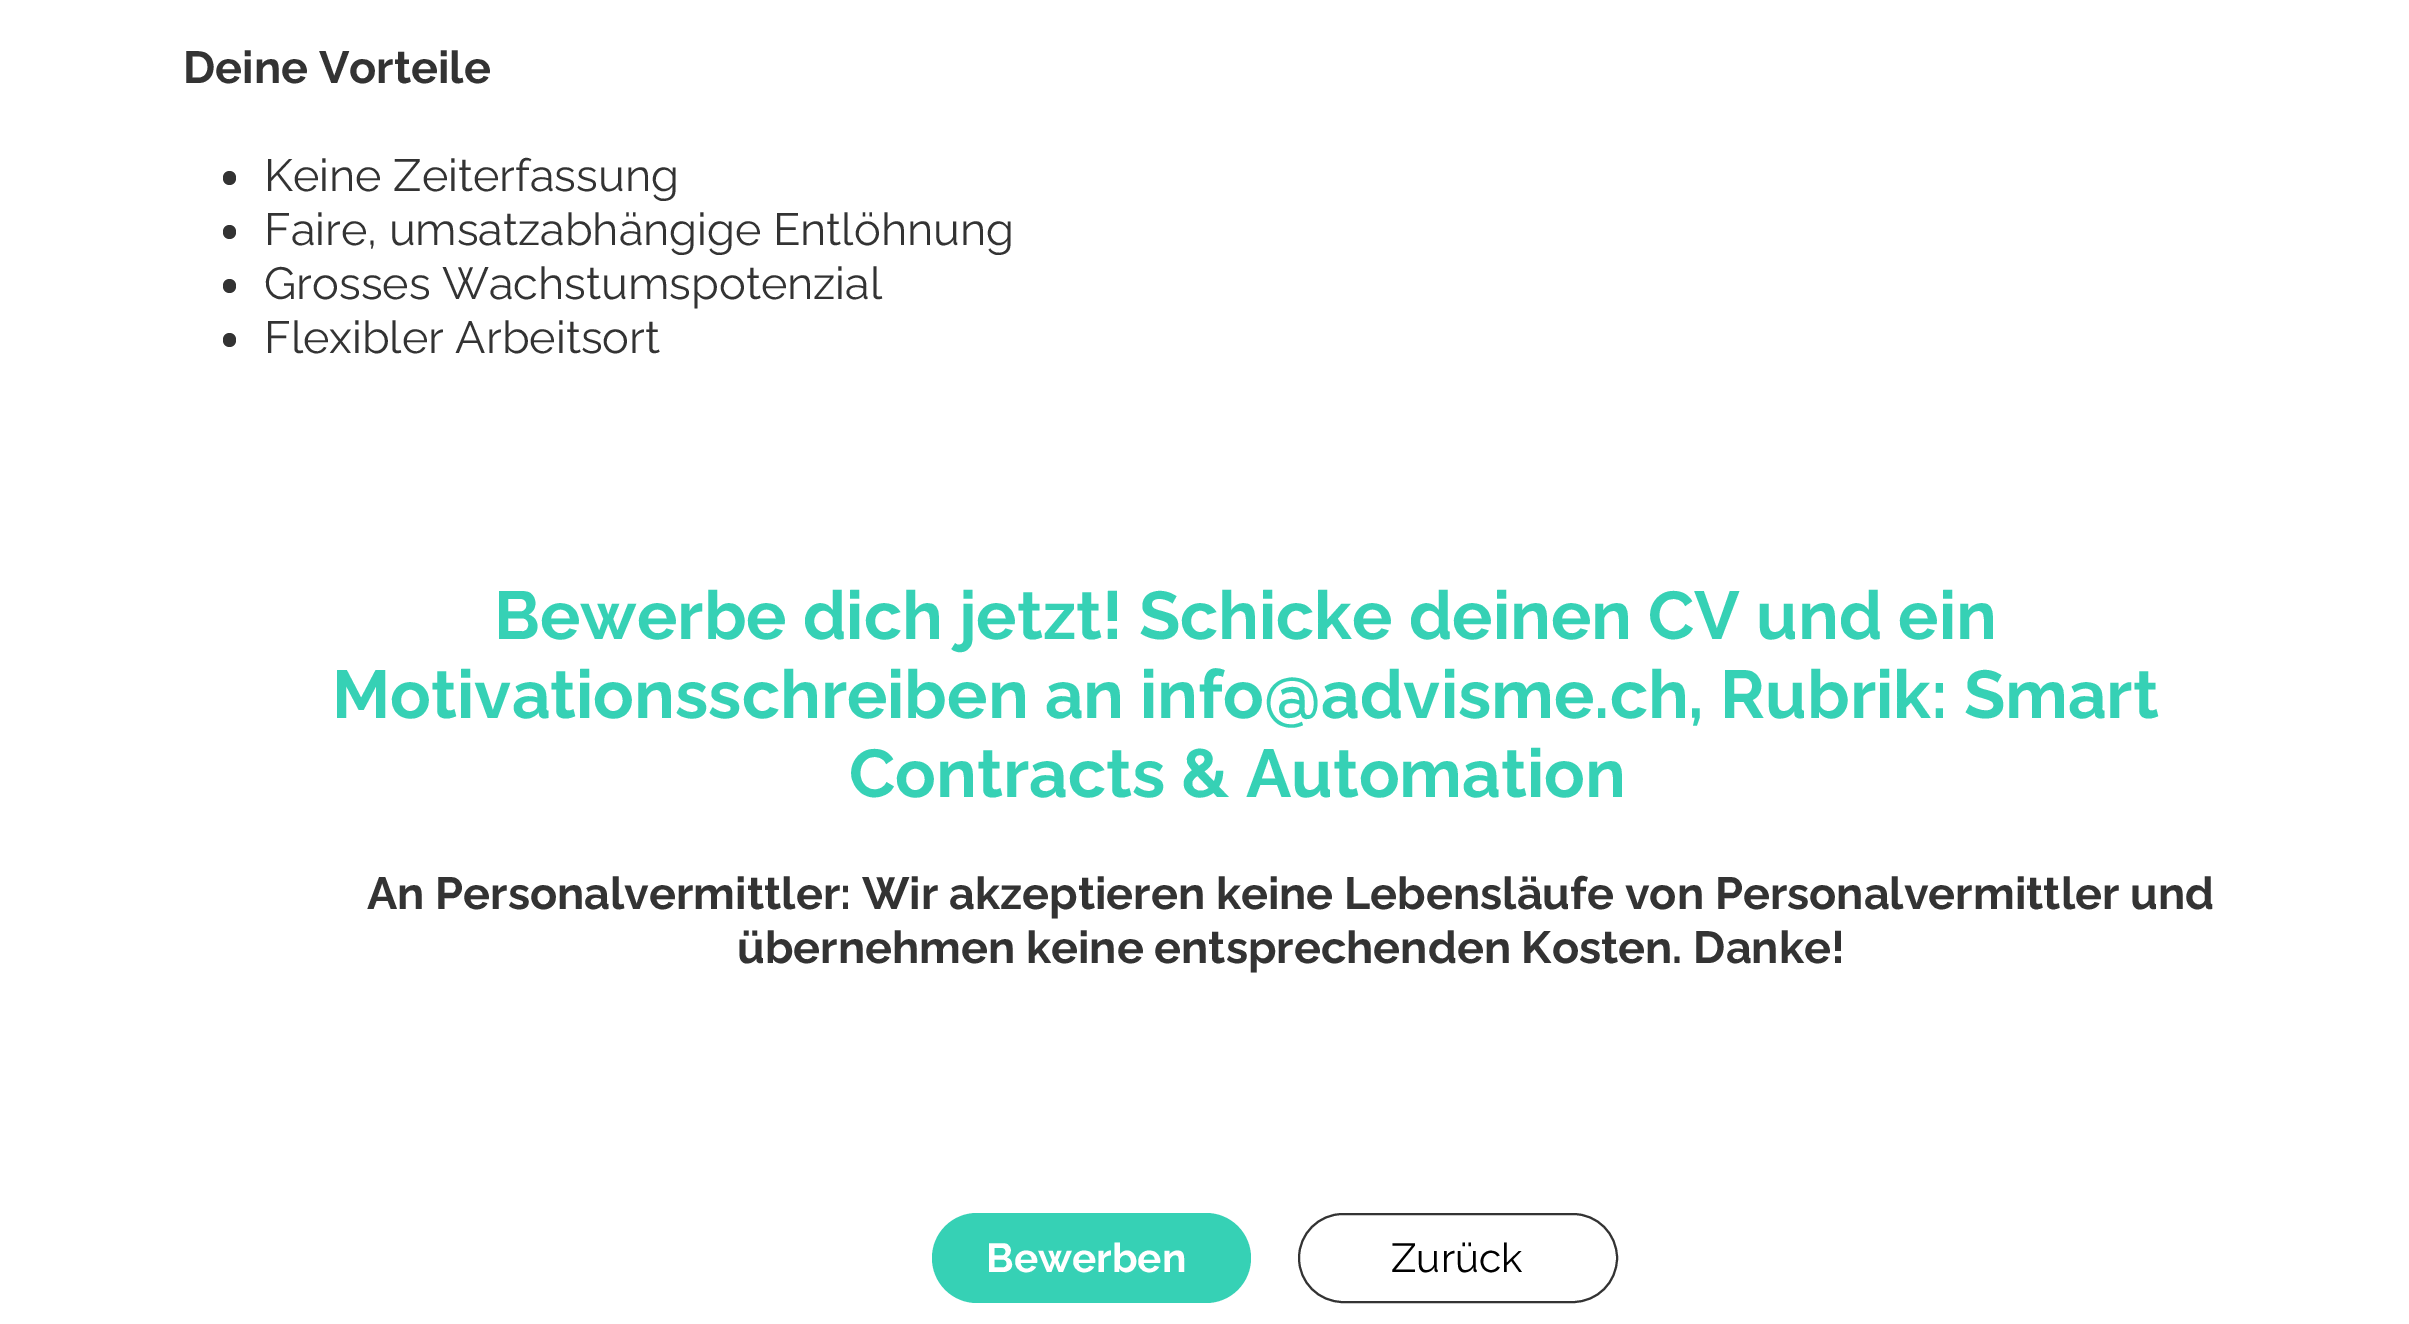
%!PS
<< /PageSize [2409 1324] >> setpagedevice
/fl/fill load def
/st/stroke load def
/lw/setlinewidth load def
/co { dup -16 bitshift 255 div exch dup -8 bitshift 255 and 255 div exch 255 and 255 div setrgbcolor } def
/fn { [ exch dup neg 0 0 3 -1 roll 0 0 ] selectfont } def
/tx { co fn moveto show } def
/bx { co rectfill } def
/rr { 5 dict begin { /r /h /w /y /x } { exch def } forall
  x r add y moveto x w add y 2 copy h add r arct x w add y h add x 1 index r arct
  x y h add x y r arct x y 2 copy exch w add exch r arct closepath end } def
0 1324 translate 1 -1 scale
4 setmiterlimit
0 0 2409 1324 16#FFFFFF bx
16#333333 co
223 171 13 14 6.5 rr fl
223 225 13 14 6.5 rr fl
223 279 13 14 6.5 rr fl
223 333 13 14 6.5 rr fl
16#36D1B5 co
932 1213 319 90 45 rr fl
16#333333 co
2 lw
1299 1214 318 88 44 rr st
(Deine Vorteile) 183 83 /Raleway-Bold 45 16#333333 tx
(Keine Zeiterfassung) 264 191 /Raleway-Regular 45 16#333333 tx
(Faire, umsatzabhängige Entlöhnung) 264 245 /Raleway-Regular 45 16#333333 tx
(Grosses Wachstumspotenzial) 264 299 /Raleway-Regular 45 16#333333 tx
(Flexibler Arbeitsort) 264 353 /Raleway-Regular 45 16#333333 tx
(Bewerbe dich jetzt! Schicke deinen CV und ein) 494 639 /Raleway-Bold 67.5 16#36D1B5 tx
(Motivationsschreiben an info@advisme.ch, Rubrik: Smart) 332 718 /Raleway-Bold 67.5 16#36D1B5 tx
(Contracts & Automation) 849 797 /Raleway-Bold 67.5 16#36D1B5 tx
(An Personalvermittler: Wir akzeptieren keine Lebensläufe von Personalvermittler und) 367 909 /Raleway-Bold 45 16#333333 tx
(übernehmen keine entsprechenden Kosten. Danke!) 737 963 /Raleway-Bold 45 16#333333 tx
(Bewerben) 986 1272 /Raleway-Bold 40.5 16#FFFFFF tx
(Zurück) 1391 1272 /Raleway-Regular 40.5 16#000000 tx
showpage
